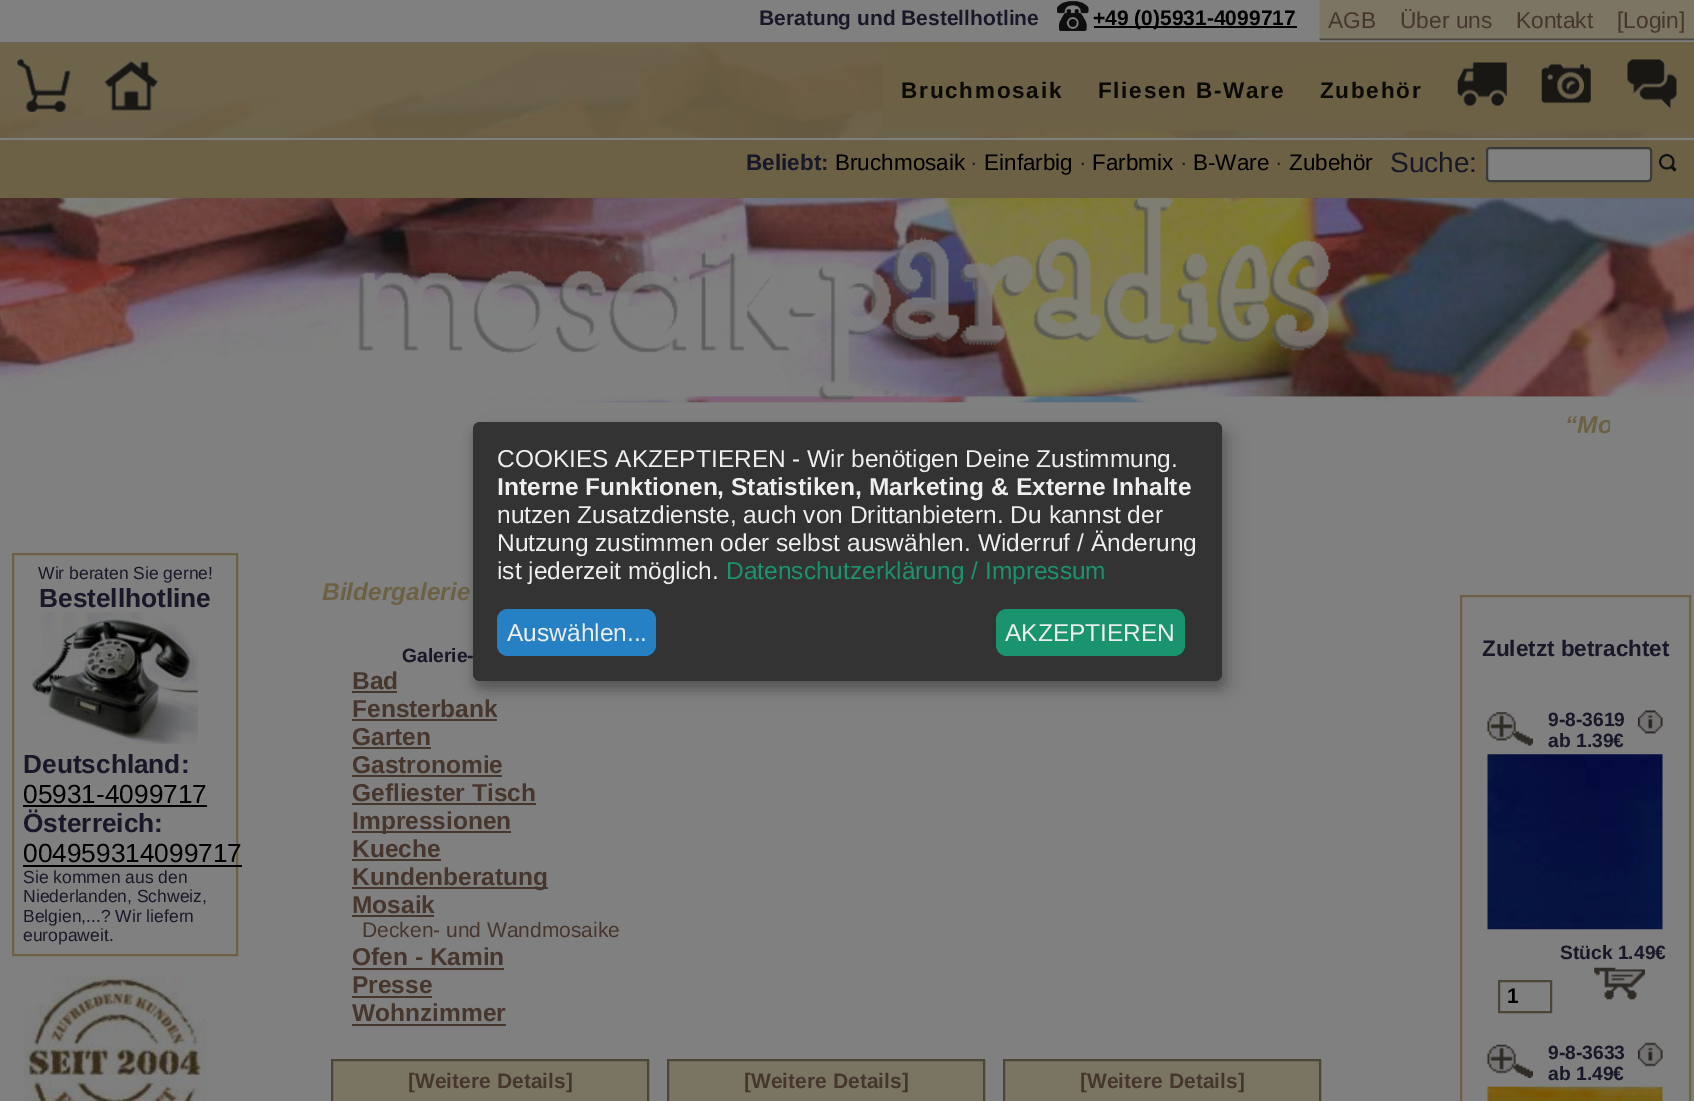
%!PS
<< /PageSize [1694 1101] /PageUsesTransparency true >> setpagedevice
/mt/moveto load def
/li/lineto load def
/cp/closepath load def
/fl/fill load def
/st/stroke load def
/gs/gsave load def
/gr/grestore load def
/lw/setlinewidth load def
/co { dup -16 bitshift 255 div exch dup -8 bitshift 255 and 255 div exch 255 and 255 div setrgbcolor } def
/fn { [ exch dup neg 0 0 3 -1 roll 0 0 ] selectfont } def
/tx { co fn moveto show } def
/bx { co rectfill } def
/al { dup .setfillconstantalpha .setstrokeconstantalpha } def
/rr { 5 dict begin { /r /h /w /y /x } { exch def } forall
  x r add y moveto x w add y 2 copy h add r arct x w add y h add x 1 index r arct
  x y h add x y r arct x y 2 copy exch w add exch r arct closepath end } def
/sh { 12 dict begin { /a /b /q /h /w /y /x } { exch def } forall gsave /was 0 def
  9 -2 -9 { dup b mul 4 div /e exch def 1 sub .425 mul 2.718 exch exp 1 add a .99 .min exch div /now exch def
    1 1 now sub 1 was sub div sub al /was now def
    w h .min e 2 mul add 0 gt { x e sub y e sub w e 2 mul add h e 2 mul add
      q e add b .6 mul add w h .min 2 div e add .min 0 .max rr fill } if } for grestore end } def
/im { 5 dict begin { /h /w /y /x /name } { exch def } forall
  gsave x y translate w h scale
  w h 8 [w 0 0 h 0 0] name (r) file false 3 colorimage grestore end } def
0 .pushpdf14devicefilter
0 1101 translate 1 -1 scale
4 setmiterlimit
0 0 1694 1101 16#808080 bx
(media/1.raw) 1057 1 32 30 im
1094 26 203 2 16#000000 bx
(media/2.raw) 1319 0 375 41 im
(media/3.raw) 0 42 1694 361 im
0.9 al
0 42 1694 96 16#6C6145 bx
1 al
(media/4.raw) 17 59 54 53 im
(media/5.raw) 104 61 54 50 im
0.9 al
882 42 558 89 16#6C6145 bx
1 al
1440 42 254 89 16#6C6145 bx
(media/6.raw) 1457 62 50 45 im
(media/7.raw) 1541 63 50 41 im
(media/8.raw) 1627 59 50 50 im
0 140 1694 58 16#6C6145 bx
0 138 1694 2 16#808080 bx
1487 148 164 33 3 rr gs fl gr
16#3B3B3B co
2 lw
st
(media/9.raw) 1659 154 18 18 im
(media/10.raw) 358 198 973 203 im
16#000000 co
481 431 749 259 7 9 .19 sh
473 429 749 259 7 5 .2 sh
16#333333 co
473 422 749 259 7 rr fl
16#2581C4 co
497 609 159 47 11 rr fl
16#1A936F co
996 609 189 47 11 rr fl
16#6C6145 co
13 554 224 401 rectstroke
(media/11.raw) 32 612 166 132 im
23 805 184 2 16#000000 bx
23 865 219 2 16#000000 bx
(media/12.raw) 24 976 183 125 im
352 691 45 2 16#46362D bx
352 719 145 2 16#46362D bx
352 747 79 2 16#46362D bx
352 775 150 2 16#46362D bx
352 803 184 2 16#46362D bx
352 831 159 2 16#46362D bx
352 859 89 2 16#46362D bx
352 887 196 2 16#46362D bx
352 915 82 2 16#46362D bx
352 968 152 2 16#46362D bx
352 996 80 2 16#46362D bx
352 1024 154 2 16#46362D bx
16#7A7463 co
332 1060 mt 648 1060 li 648 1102 li 332 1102 li cp gs fl gr
16#4B4638 co
st
16#7A7463 co
668 1060 mt 984 1060 li 984 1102 li 668 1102 li cp gs fl gr
16#4B4638 co
st
16#7A7463 co
1004 1060 mt 1320 1060 li 1320 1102 li 1004 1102 li cp gs fl gr
16#4B4638 co
st
16#6C6145 co
1461 596 229 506 rectstroke
(media/13.raw) 1487 712 46 34 im
(media/14.raw) 1638 710 25 24 im
(media/15.raw) 1487 754 176 176 im
16#4B4638 co
1499 981 52 31 rectstroke
(media/16.raw) 1594 967 51 33 im
(media/17.raw) 1487 1044 46 34 im
(media/18.raw) 1638 1042 25 25 im
(media/19.raw) 1487 1086 176 15 im
(Beratung und Bestellhotline) 759 25 /LiberationSans-Bold 21 16#181828 tx
(+49 \(0\)5931-4099717) 1093 25 /LiberationSans-Bold 21 16#000000 tx
(AGB) 1328 28 /LiberationSans-Regular 22.75 16#46362D tx
(Über uns) 1400 28 /LiberationSans-Regular 22.75 16#46362D tx
(Kontakt) 1516 28 /LiberationSans-Regular 22.75 16#46362D tx
([Login]) 1617 28 /LiberationSans-Regular 22.75 16#46362D tx
/LiberationSans-Bold 22.5 fn
16#0B0A07 co
901 98 mt 1.75 0 (Bruchmosaik) ashow
1098 98 mt 1.75 0 (Fliesen B-Ware) ashow
1320 98 mt 1.75 0 (Zubehör) ashow
(Beliebt:) 746 170 /LiberationSans-Bold 22.5 16#181828 tx
(Bruchmosaik) 835 170 /LiberationSans-Regular 22.5 16#000000 tx
(·) 970 170 /LiberationSans-Regular 22.5 16#181828 tx
(Einfarbig) 984 170 /LiberationSans-Regular 22.5 16#000000 tx
(·) 1079 170 /LiberationSans-Regular 22.5 16#181828 tx
(Farbmix) 1092 170 /LiberationSans-Regular 22.5 16#000000 tx
(·) 1180 170 /LiberationSans-Regular 22.5 16#181828 tx
(B-Ware) 1193 170 /LiberationSans-Regular 22.5 16#000000 tx
(·) 1275 170 /LiberationSans-Regular 22.5 16#181828 tx
(Zubehör) 1289 170 /LiberationSans-Regular 22.5 16#000000 tx
(Suche:) 1390 172 /LiberationSans-Regular 28 16#181828 tx
gs
84 394 1526 61 rectclip
(“Mo) 1565 433 /LiberationSans-BoldItalic 24.5 16#6C6145 tx
gr
(COOKIES AKZEPTIEREN - Wir benötigen Deine Zustimmung.) 497 467 /LiberationSans-Regular 24.5 16#EEEEEE tx
(Interne Funktionen, Statistiken, Marketing & Externe Inhalte) 497 495 /LiberationSans-Bold 24.5 16#EEEEEE tx
(nutzen Zusatzdienste, auch von Drittanbietern. Du kannst der) 497 523 /LiberationSans-Regular 24.5 16#EEEEEE tx
(Nutzung zustimmen oder selbst auswählen. Widerruf / Änderung) 497 551 /LiberationSans-Regular 24.5 16#EEEEEE tx
(ist jederzeit möglich.) 497 579 /LiberationSans-Regular 24.5 16#EEEEEE tx
(Datenschutzerklärung / Impressum) 726 579 /LiberationSans-Regular 24.5 16#1A936F tx
(Auswählen...) 507 641 /LiberationSans-Regular 24.5 16#EEEEEE tx
(AKZEPTIEREN) 1005 641 /LiberationSans-Regular 24.5 16#EEEEEE tx
(Wir beraten Sie gerne!) 38 579 /LiberationSans-Regular 17.5 16#181828 tx
(Bestellhotline) 39 607 /LiberationSans-Bold 26.25 16#181828 tx
(Deutschland:) 23 773 /LiberationSans-Bold 26.25 16#181828 tx
(05931-4099717) 23 803 /LiberationSans-Regular 26.25 16#000000 tx
(Österreich:) 23 832 /LiberationSans-Bold 26.25 16#181828 tx
(004959314099717) 23 862 /LiberationSans-Regular 26.25 16#000000 tx
(Sie kommen aus den) 23 883 /LiberationSans-Regular 17.5 16#181828 tx
(Niederlanden, Schweiz,) 23 902 /LiberationSans-Regular 17.5 16#181828 tx
(Belgien,...? Wir liefern) 23 922 /LiberationSans-Regular 17.5 16#181828 tx
(europaweit.) 23 941 /LiberationSans-Regular 17.5 16#181828 tx
(Bildergalerie) 322 600 /LiberationSans-BoldItalic 24.5 16#6C6145 tx
(Galerie-) 402 662 /LiberationSans-Bold 19.25 16#181828 tx
(Bad) 352 689 /LiberationSans-Bold 24.5 16#46362D tx
(Fensterbank) 352 717 /LiberationSans-Bold 24.5 16#46362D tx
(Garten) 352 745 /LiberationSans-Bold 24.5 16#46362D tx
(Gastronomie) 352 773 /LiberationSans-Bold 24.5 16#46362D tx
(Gefliester Tisch) 352 801 /LiberationSans-Bold 24.5 16#46362D tx
(Impressionen) 352 829 /LiberationSans-Bold 24.5 16#46362D tx
(Kueche) 352 857 /LiberationSans-Bold 24.5 16#46362D tx
(Kundenberatung) 352 885 /LiberationSans-Bold 24.5 16#46362D tx
(Mosaik) 352 913 /LiberationSans-Bold 24.5 16#46362D tx
(Decken- und Wandmosaike) 362 937 /LiberationSans-Regular 21 16#46362D tx
(Ofen - Kamin) 352 965 /LiberationSans-Bold 24.5 16#46362D tx
(Presse) 352 993 /LiberationSans-Bold 24.5 16#46362D tx
(Wohnzimmer) 352 1021 /LiberationSans-Bold 24.5 16#46362D tx
([Weitere Details]) 408 1088 /LiberationSans-Bold 21 16#46362D tx
([Weitere Details]) 744 1088 /LiberationSans-Bold 21 16#46362D tx
([Weitere Details]) 1080 1088 /LiberationSans-Bold 21 16#46362D tx
(Zuletzt betrachtet) 1482 656 /LiberationSans-Bold 22.5 16#181828 tx
(9-8-3619) 1548 726 /LiberationSans-Bold 19.25 16#181828 tx
(ab 1.39€) 1548 747 /LiberationSans-Bold 19.25 16#181828 tx
(Stück 1.49€) 1560 959 /LiberationSans-Bold 19.25 16#181828 tx
(1) 1507 1003 /LiberationSans-Bold 21 16#000000 tx
(9-8-3633) 1548 1059 /LiberationSans-Bold 19.25 16#181828 tx
(ab 1.49€) 1548 1080 /LiberationSans-Bold 19.25 16#181828 tx
.poppdf14devicefilter showpage
